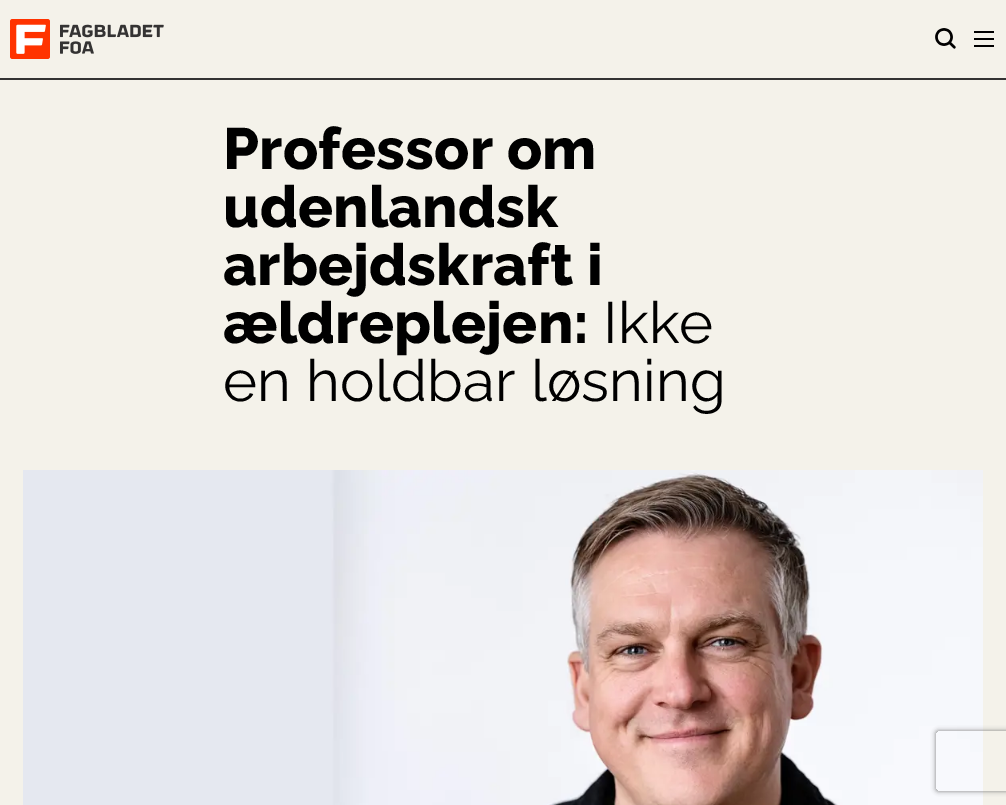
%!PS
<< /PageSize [1006 805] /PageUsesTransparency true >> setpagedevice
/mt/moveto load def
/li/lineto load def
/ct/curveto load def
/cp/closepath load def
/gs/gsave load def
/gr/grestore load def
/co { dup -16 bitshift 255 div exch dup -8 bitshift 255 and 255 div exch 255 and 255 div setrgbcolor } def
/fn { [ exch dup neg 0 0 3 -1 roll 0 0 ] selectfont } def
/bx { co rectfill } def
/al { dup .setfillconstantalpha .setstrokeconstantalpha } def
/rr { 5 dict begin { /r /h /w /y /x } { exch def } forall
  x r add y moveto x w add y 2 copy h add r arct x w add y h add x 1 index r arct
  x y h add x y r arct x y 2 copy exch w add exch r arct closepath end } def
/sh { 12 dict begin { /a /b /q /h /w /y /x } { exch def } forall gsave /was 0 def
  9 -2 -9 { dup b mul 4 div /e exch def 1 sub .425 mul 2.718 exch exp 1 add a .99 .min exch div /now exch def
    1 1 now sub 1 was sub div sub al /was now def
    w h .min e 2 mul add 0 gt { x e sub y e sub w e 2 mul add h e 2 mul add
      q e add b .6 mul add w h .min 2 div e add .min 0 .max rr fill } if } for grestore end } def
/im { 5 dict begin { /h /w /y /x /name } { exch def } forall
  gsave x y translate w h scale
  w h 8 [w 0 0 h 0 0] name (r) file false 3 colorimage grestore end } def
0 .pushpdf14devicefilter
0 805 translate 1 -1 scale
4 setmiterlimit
0 0 1006 805 16#F4F2EA bx
0 78 1006 2 16#343333 bx
(media/1.raw) 10 19 154 40 im
(media/2.raw) 935 28 21 21 im
974 31 20 2 16#000000 bx
974 38 20 2 16#000000 bx
974 45 20 2 16#000000 bx
(media/3.raw) 23 470 960 335 im
gs
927 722 mt 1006 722 li 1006 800 li 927 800 li cp 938 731 mt 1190 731 li 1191 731 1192 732 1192 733 ct 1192 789 li 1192 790 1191 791 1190 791 ct 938 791 li 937 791 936 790 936 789 ct 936 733 li 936 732 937 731 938 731 ct cp eoclip newpath
16#808080 co
936 731 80 60 2 2.5 1 sh
gr
/Raleway-ExtraBold 58 fn
223 169 mt .2 0 (Professor om) ashow
223 227 mt .2 0 (udenlandsk) ashow
223 285 mt .2 0 (arbejdskraft i) ashow
223 343 mt .2 0 (ældreplejen:) ashow
/Raleway-Regular 58 fn
603 343 mt .2 0 (Ikke) ashow
223 401 mt .2 0 (en holdbar løsning) ashow
.poppdf14devicefilter showpage
